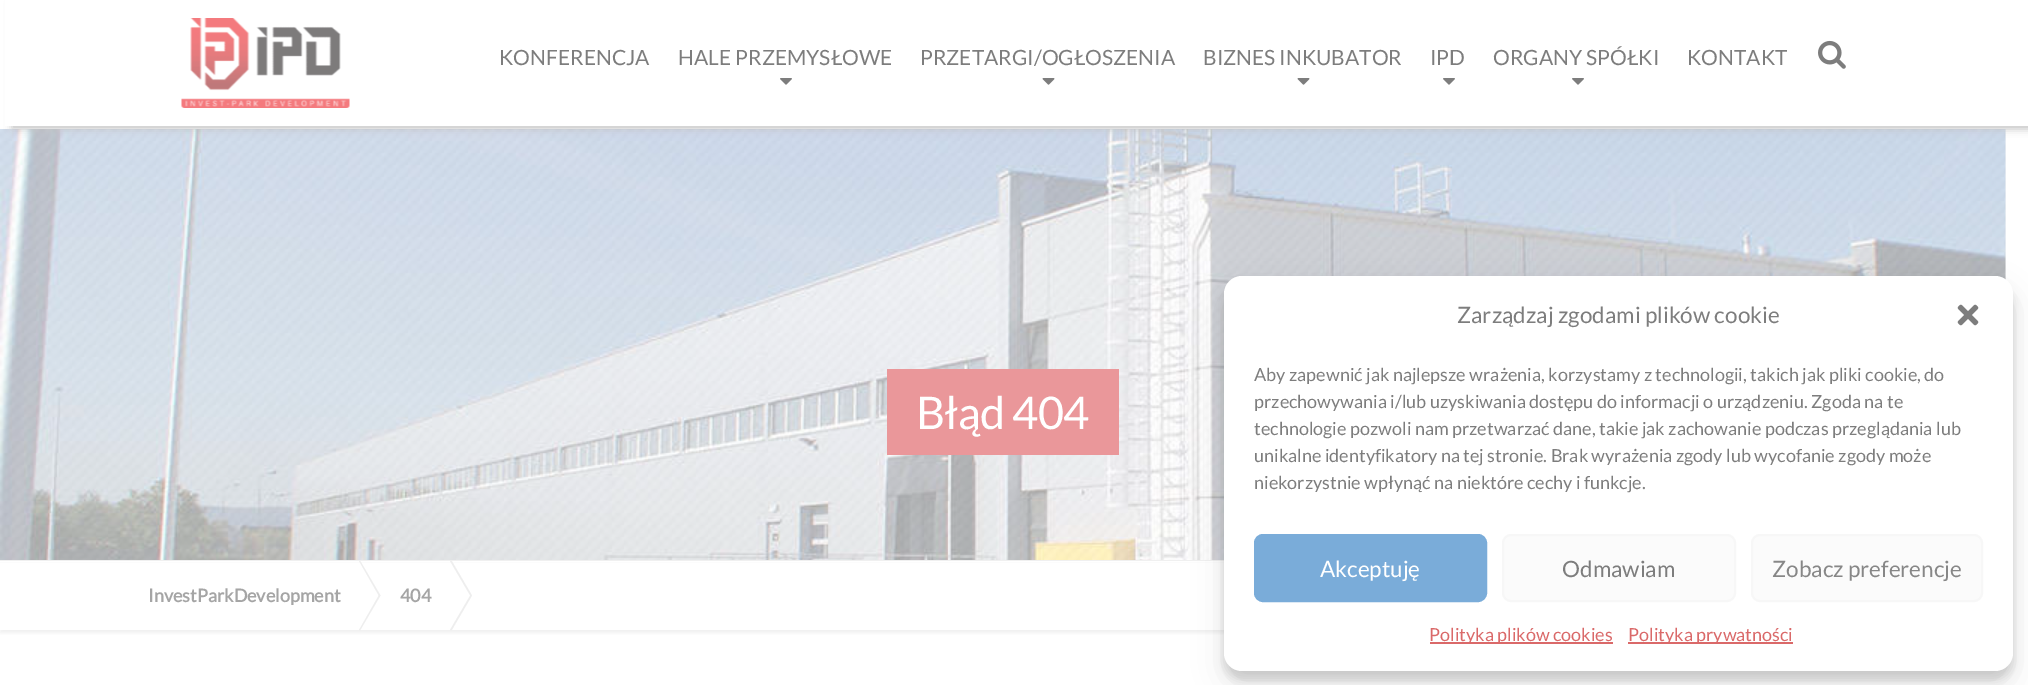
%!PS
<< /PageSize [2028 685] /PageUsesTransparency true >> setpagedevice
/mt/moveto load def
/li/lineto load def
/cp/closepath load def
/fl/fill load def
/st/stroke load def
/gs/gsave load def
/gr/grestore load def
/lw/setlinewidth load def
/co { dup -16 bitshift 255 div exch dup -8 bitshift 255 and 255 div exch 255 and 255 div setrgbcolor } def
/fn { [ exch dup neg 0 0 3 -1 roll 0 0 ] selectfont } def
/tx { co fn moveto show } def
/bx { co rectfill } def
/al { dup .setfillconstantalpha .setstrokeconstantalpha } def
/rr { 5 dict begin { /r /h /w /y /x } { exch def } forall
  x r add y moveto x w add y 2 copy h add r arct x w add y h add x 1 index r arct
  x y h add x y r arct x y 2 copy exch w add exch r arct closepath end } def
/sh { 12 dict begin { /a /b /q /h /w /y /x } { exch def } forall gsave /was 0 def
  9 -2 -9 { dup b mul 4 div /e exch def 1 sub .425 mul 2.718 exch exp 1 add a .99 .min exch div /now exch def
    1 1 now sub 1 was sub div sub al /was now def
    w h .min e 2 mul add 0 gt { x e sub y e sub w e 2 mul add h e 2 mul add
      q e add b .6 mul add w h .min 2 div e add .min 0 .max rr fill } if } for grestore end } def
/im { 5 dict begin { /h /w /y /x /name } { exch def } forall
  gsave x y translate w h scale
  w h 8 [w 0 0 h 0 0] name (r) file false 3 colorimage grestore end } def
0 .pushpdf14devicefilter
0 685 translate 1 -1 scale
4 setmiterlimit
0 0 2028 685 16#FFFFFF bx
2005 129 1 151 16#F7F7F7 bx
(media/5.raw) 0 129 2006 431 im
16#C3C3C3 co
12 3 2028 126 0 4 1 sh
5 0 2023 126 16#FFFFFF bx
(media/1.raw) 181 18 169 90 im
(media/2.raw) 780 78 12 7 im
(media/3.raw) 1042 78 13 7 im
(media/3.raw) 1297 78 13 7 im
(media/2.raw) 1443 78 12 7 im
(media/2.raw) 1572 78 12 7 im
(media/4.raw) 1818 40 28 29 im
0 560 1224 1 16#F0F0F0 bx
887 369 232 86 16#EA979A bx
16#F0F0F0 co
0 564 2006 69 0 1.5 1 sh
0 563 1224 67 16#FFFFFF bx
16#EEEEEE co
359 561 mt 360 560.5 li 380.5 595.5 li 379 596 li cp fl
379 595 mt 380.5 595.5 li 360 630.5 li 359 630 li cp fl
450 561 mt 451.5 560.5 li 472 595.5 li 470.5 596 li cp fl
470.5 595 mt 472 595.5 li 451.5 630.5 li 450 630 li cp fl
16#696969 co
1224 285 789 395 18 4.5 .23 sh
1224 291 789 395 18 15 .19 sh
16#FFFFFF co
1224 276 789 395 18 rr fl
(media/6.raw) 1957 304 22 22 im
16#7AACD9 co
1255 535 231 66 8 rr gs fl gr
2 lw
st
16#FBFBFB co
1503 535 232 66 8 rr gs fl gr
16#F7F7F7 co
st
16#FBFBFB co
1752 535 230 66 8 rr gs fl gr
16#F7F7F7 co
st
1430 642 183 2 16#DA6969 bx
1628 642 165 2 16#DA6969 bx
(KONFERENCJA) 499 65 /Lato-Regular 21 16#7D7D7D tx
(HALE PRZEMYSŁOWE) 678 65 /Lato-Regular 21 16#7D7D7D tx
(PRZETARGI/OGŁOSZENIA) 920 65 /Lato-Regular 21 16#7D7D7D tx
(BIZNES INKUBATOR) 1203 65 /Lato-Regular 21 16#7D7D7D tx
(IPD) 1430 65 /Lato-Regular 21 16#7D7D7D tx
(ORGANY SPÓŁKI) 1493 65 /Lato-Regular 21 16#7D7D7D tx
(KONTAKT) 1687 65 /Lato-Regular 21 16#7D7D7D tx
/Lato-Regular 45 fn
16#FFFFFF co
916 429 mt -.75 0 (Błąd 404) ashow
(InvestParkDevelopment) 148 602 /Lato-Bold 18 16#A5A5A5 tx
(404) 400 602 /Lato-Bold 18 16#A5A5A5 tx
(Zarządzaj zgodami plików cookie) 1457 323 /Lato-Regular 22.5 16#7D7D7D tx
(Aby zapewnić jak najlepsze wrażenia, korzystamy z technologii, takich jak pliki cookie, do) 1254 381 /Lato-Regular 18 16#7D7D7D tx
(przechowywania i/lub uzyskiwania dostępu do informacji o urządzeniu. Zgoda na te) 1254 408 /Lato-Regular 18 16#7D7D7D tx
(technologie pozwoli nam przetwarzać dane, takie jak zachowanie podczas przeglądania lub) 1254 435 /Lato-Regular 18 16#7D7D7D tx
(unikalne identyfikatory na tej stronie. Brak wyrażenia zgody lub wycofanie zgody może) 1254 462 /Lato-Regular 18 16#7D7D7D tx
(niekorzystnie wpłynąć na niektóre cechy i funkcje.) 1254 489 /Lato-Regular 18 16#7D7D7D tx
(Akceptuję) 1320 577 /Lato-Regular 22.5 16#FFFFFF tx
(Odmawiam) 1562 577 /Lato-Regular 22.5 16#7D7D7D tx
(Zobacz preferencje) 1772 577 /Lato-Regular 22.5 16#878787 tx
(Polityka plików cookies) 1429 641 /Lato-Regular 18 16#DA6969 tx
(Polityka prywatności) 1628 641 /Lato-Regular 18 16#DA6969 tx
.poppdf14devicefilter showpage
